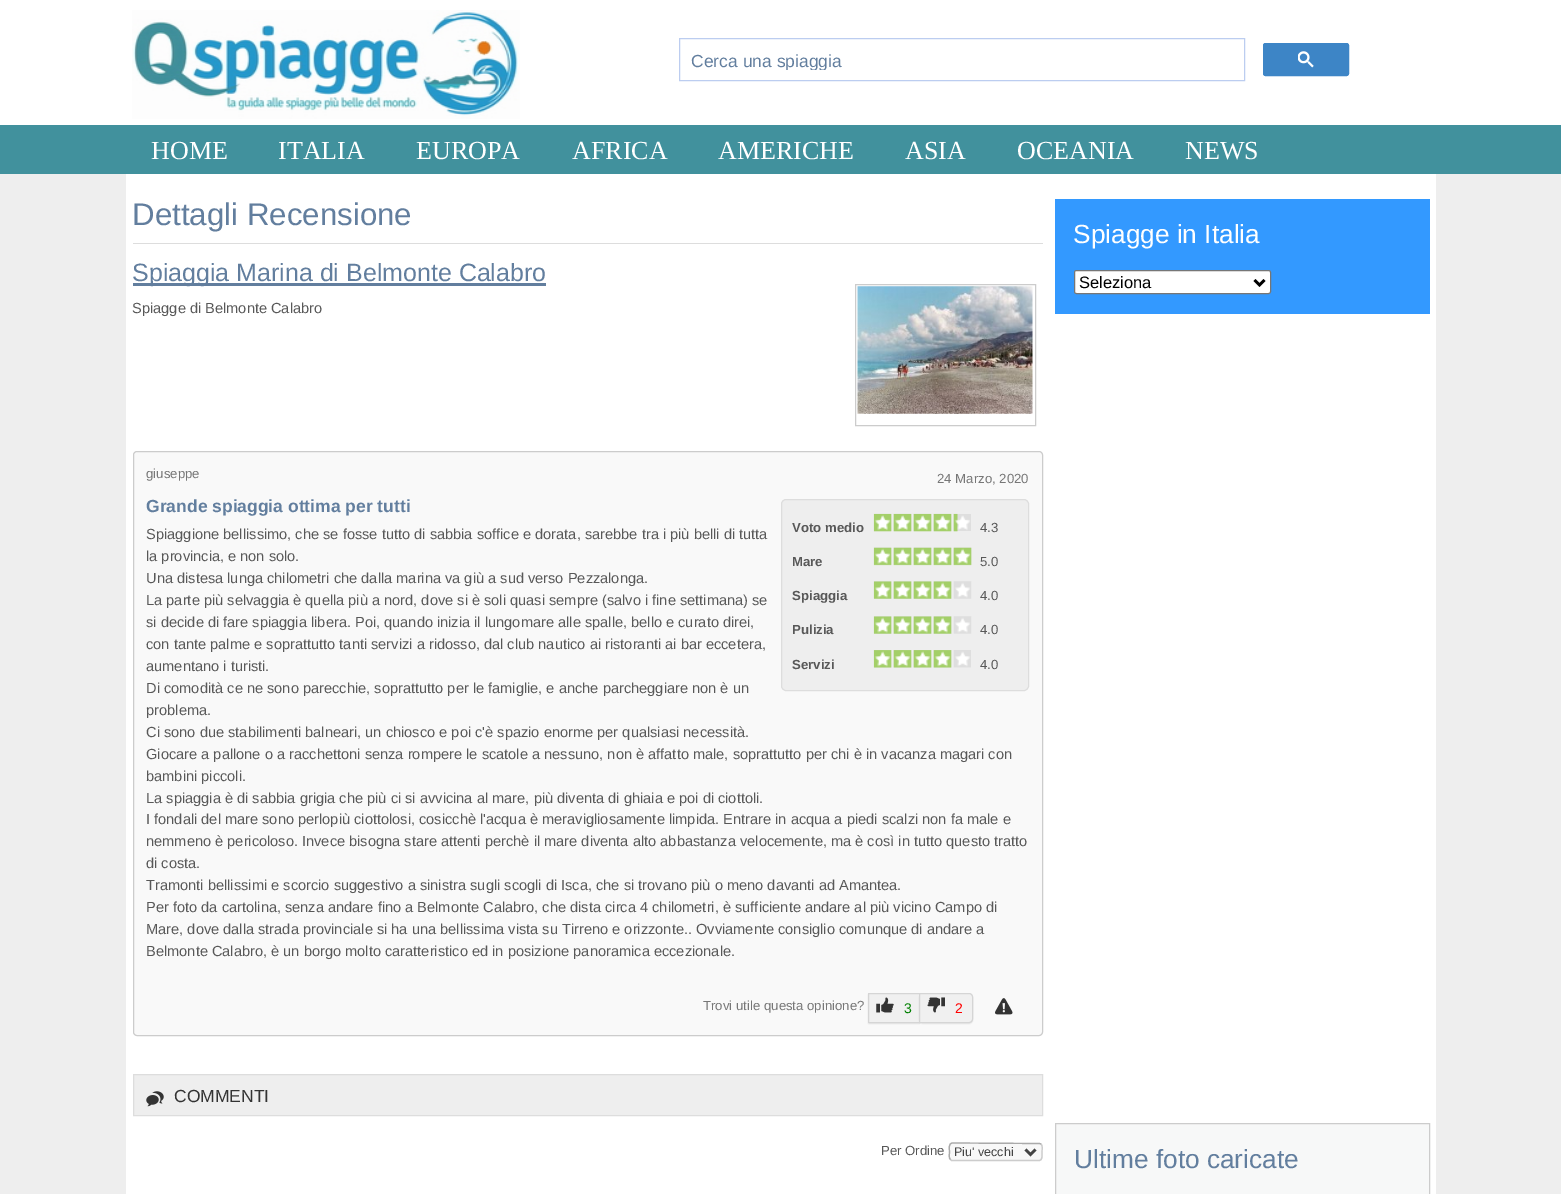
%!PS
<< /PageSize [1561 1194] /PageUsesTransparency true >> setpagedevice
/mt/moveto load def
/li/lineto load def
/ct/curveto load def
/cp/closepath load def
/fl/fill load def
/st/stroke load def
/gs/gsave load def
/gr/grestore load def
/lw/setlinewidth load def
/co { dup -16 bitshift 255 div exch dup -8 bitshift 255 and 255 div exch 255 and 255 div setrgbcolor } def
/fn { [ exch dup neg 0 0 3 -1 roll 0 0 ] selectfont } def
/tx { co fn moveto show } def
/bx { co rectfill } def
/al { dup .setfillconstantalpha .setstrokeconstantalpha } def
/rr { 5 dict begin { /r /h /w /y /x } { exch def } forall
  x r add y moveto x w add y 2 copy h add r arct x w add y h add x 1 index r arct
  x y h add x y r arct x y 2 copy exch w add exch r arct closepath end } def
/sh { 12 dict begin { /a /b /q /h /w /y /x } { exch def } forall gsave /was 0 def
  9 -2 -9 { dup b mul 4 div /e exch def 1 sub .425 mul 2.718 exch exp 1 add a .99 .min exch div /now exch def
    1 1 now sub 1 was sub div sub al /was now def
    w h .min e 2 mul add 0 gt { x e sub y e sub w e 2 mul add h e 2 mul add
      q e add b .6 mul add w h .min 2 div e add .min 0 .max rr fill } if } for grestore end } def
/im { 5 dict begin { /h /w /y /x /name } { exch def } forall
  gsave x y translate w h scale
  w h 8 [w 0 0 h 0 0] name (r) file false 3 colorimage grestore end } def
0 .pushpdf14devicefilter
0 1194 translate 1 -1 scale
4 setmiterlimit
0 0 1561 1194 16#EEEEEE bx
0 0 1561 125 16#FFFFFF bx
(media/1.raw) 132 10 388 109 im
16#BCCDF0 co
679.5 38.5 565 42 rectstroke
16#3D85C6 co
1263.5 43.5 85 32 2 rr gs fl gr
st
(media/2.raw) 1298 51 16 17 im
0 125 1561 49 16#41919D bx
126 174 1310 1020 16#FFFFFF bx
133 243 910 1 16#DDDDDD bx
133 283 413 3 16#627E9E bx
16#CCCCCC co
855.5 284.5 180 141 rectstroke
(media/3.raw) 857 286 176 128 im
16#F9F9F9 co
133.5 451.5 909 584 3.5 rr gs fl gr
16#CCCCCC co
st
16#EEEEEE co
781.5 499.5 247 191 4.5 rr gs fl gr
16#DDDDDD co
st
(media/4.raw) 891 514 80 17 im
(media/5.raw) 873 513 85 19 im
(media/6.raw) 874 547 98 18 im
(media/7.raw) 873 547 99 19 im
(media/8.raw) 874 581 98 18 im
(media/9.raw) 873 581 79 18 im
(media/10.raw) 874 616 98 18 im
(media/11.raw) 873 616 79 18 im
(media/12.raw) 874 650 97 18 im
(media/13.raw) 873 650 79 18 im
16#000000 co
868 994 52 30 1 .5 .07 sh
16#F0F0F0 co
869 993.5 mt 919.5 993.5 li 919.5 1022.5 li 869 1022.5 li 868.5 1022.5 868.5 1022.5 868.5 1022 ct 868.5 994 li 868.5 993.5 868.5 993.5 869 993.5 ct cp gs fl gr
16#D5D5D5 co
st
(media/14.raw) 876 997 18 16 im
16#000000 co
919 994 54 30 4 .5 .07 sh
16#F0F0F0 co
919.5 993.5 mt 969 993.5 li 971 993.5 972.5 995 972.5 997 ct 972.5 1019 li 972.5 1021 971 1022.5 969 1022.5 ct 919.5 1022.5 li cp gs fl gr
16#D5D5D5 co
st
(media/15.raw) 927 997 18 16 im
(media/16.raw) 995 998 18 17 im
16#EEEEEE co
133.5 1074.5 mt 1042.5 1074.5 li 1042.5 1115.5 li 133.5 1115.5 li cp gs fl gr
16#DDDDDD co
st
(media/17.raw) 146 1091 18 16 im
16#F8F8F8 co
949 1143 94 18 4 rr fl
16#CCCCCC co
1.2 lw
1041 1144 mt 1043 1146 1042 1149.5 1042 1152 ct 1042 1154.5 1043 1160.5 1039 1160.5 ct 951.5 1160.5 li 950.5 1159.5 li st
16#AAAAAA co
950.5 1159.5 mt 948.5 1158 949.5 1154 949.5 1152 ct 949.5 1149.5 948 1143 952.5 1143 ct 1039.5 1143.5 li 1041 1144 li st
16#444444 co
2.5 lw
1025.5 1149.5 mt 1030.5 1154.5 li 1035.5 1149.5 li st
1055 199 375 115 16#3399FF bx
16#FFFFFF co
1074.5 270.5 196 23 2 rr gs fl gr
16#767676 co
1 lw
st
16#000000 co
2.5 lw
1254.5 280 mt 1259.5 285 li 1264.5 280 li st
16#F7F8F8 co
1055.5 1123.5 mt 1429.5 1123.5 li 1429.5 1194.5 li 1055.5 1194.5 li cp gs fl gr
16#CCCCCC co
1 lw
st
gs
691 50 537 20 rectclip
(Cerca una spiaggia) 691 67 /LiberationSans-Regular 17.5 16#627E9E tx
gr
(HOME) 151 159 /LiberationSerif-Regular 26 16#FFFFFF tx
(ITALIA) 278 159 /LiberationSerif-Regular 26 16#FFFFFF tx
(EUROPA) 416 159 /LiberationSerif-Regular 26 16#FFFFFF tx
(AFRICA) 572 159 /LiberationSerif-Regular 26 16#FFFFFF tx
(AMERICHE) 718 159 /LiberationSerif-Regular 26 16#FFFFFF tx
(ASIA) 905 159 /LiberationSerif-Regular 26 16#FFFFFF tx
(OCEANIA) 1017 159 /LiberationSerif-Regular 26 16#FFFFFF tx
(NEWS) 1185 159 /LiberationSerif-Regular 26 16#FFFFFF tx
(Dettagli Recensione) 132 225 /LiberationSans-Regular 31.25 16#627E9E tx
(Spiaggia Marina di Belmonte Calabro) 132 281 /LiberationSans-Regular 25 16#627E9E tx
(Spiagge di Belmonte Calabro) 132 313 /LiberationSans-Regular 14.62 16#585858 tx
(giuseppe) 146 478 /LiberationSans-Regular 13.2 16#777777 tx
(24 Marzo, 2020) 937 483 /LiberationSans-Regular 13.2 16#777777 tx
(Grande spiaggia ottima per tutti) 146 512 /LiberationSans-Bold 17.5 16#627E9E tx
(Spiaggione bellissimo, che se fosse tutto di sabbia soffice e dorata, sarebbe tra i più belli di tutta) 146 539 /LiberationSans-Regular 14.62 16#585858 tx
(la provincia, e non solo.) 146 561 /LiberationSans-Regular 14.62 16#585858 tx
(Una distesa lunga chilometri che dalla marina va giù a sud verso Pezzalonga.) 146 583 /LiberationSans-Regular 14.62 16#585858 tx
(La parte più selvaggia è quella più a nord, dove si è soli quasi sempre \(salvo i fine settimana\) se) 146 605 /LiberationSans-Regular 14.62 16#585858 tx
(si decide di fare spiaggia libera. Poi, quando inizia il lungomare alle spalle, bello e curato direi,) 146 627 /LiberationSans-Regular 14.62 16#585858 tx
(con tante palme e soprattutto tanti servizi a ridosso, dal club nautico ai ristoranti ai bar eccetera,) 146 649 /LiberationSans-Regular 14.62 16#585858 tx
(aumentano i turisti.) 146 671 /LiberationSans-Regular 14.62 16#585858 tx
(Di comodità ce ne sono parecchie, soprattutto per le famiglie, e anche parcheggiare non è un) 146 693 /LiberationSans-Regular 14.62 16#585858 tx
(problema.) 146 715 /LiberationSans-Regular 14.62 16#585858 tx
(Ci sono due stabilimenti balneari, un chiosco e poi c'è spazio enorme per qualsiasi necessità.) 146 737 /LiberationSans-Regular 14.62 16#585858 tx
(Giocare a pallone o a racchettoni senza rompere le scatole a nessuno, non è affatto male, soprattutto per chi è in vacanza magari con) 146 759 /LiberationSans-Regular 14.62 16#585858 tx
(bambini piccoli.) 146 781 /LiberationSans-Regular 14.62 16#585858 tx
(La spiaggia è di sabbia grigia che più ci si avvicina al mare, più diventa di ghiaia e poi di ciottoli.) 146 803 /LiberationSans-Regular 14.62 16#585858 tx
(I fondali del mare sono perlopiù ciottolosi, cosicchè l'acqua è meravigliosamente limpida. Entrare in acqua a piedi scalzi non fa male e) 146 824 /LiberationSans-Regular 14.62 16#585858 tx
(nemmeno è pericoloso. Invece bisogna stare attenti perchè il mare diventa alto abbastanza velocemente, ma è così in tutto questo tratto) 146 846 /LiberationSans-Regular 14.62 16#585858 tx
(di costa.) 146 868 /LiberationSans-Regular 14.62 16#585858 tx
(Tramonti bellissimi e scorcio suggestivo a sinistra sugli scogli di Isca, che si trovano più o meno davanti ad Amantea.) 146 890 /LiberationSans-Regular 14.62 16#585858 tx
(Per foto da cartolina, senza andare fino a Belmonte Calabro, che dista circa 4 chilometri, è sufficiente andare al più vicino Campo di) 146 912 /LiberationSans-Regular 14.62 16#585858 tx
(Mare, dove dalla strada provinciale si ha una bellissima vista su Tirreno e orizzonte.. Ovviamente consiglio comunque di andare a) 146 934 /LiberationSans-Regular 14.62 16#585858 tx
(Belmonte Calabro, è un borgo molto caratteristico ed in posizione panoramica eccezionale.) 146 956 /LiberationSans-Regular 14.62 16#585858 tx
(Voto medio) 792 532 /LiberationSans-Bold 13.2 16#585858 tx
(4.3) 980 532 /LiberationSans-Regular 13.2 16#585858 tx
(Mare) 792 566 /LiberationSans-Bold 13.2 16#585858 tx
(5.0) 980 566 /LiberationSans-Regular 13.2 16#585858 tx
(Spiaggia) 792 600 /LiberationSans-Bold 13.2 16#585858 tx
(4.0) 980 600 /LiberationSans-Regular 13.2 16#585858 tx
(Pulizia) 792 634 /LiberationSans-Bold 13.2 16#585858 tx
(4.0) 980 634 /LiberationSans-Regular 13.2 16#585858 tx
(Servizi) 792 669 /LiberationSans-Bold 13.2 16#585858 tx
(4.0) 980 669 /LiberationSans-Regular 13.2 16#585858 tx
(Trovi utile questa opinione?) 703 1010 /LiberationSans-Regular 13.2 16#777777 tx
(3) 904 1013 /LiberationSans-Regular 14 16#008000 tx
(2) 955 1013 /LiberationSans-Regular 14 16#FF0000 tx
(COMMENTI) 174 1102 /LiberationSans-Regular 17.5 16#333333 tx
(Per Ordine) 881 1155 /LiberationSans-Regular 13.2 16#585858 tx
(Piu' vecchi) 954 1156 /LiberationSans-Regular 12.5 16#444444 tx
(Spiagge in Italia) 1073 243 /LiberationSans-Regular 26.25 16#FFFFFF tx
(Seleziona) 1079 288 /LiberationSans-Regular 16.5 16#000000 tx
(Ultime foto caricate) 1074 1168 /LiberationSans-Regular 26.25 16#627E9E tx
.poppdf14devicefilter showpage
